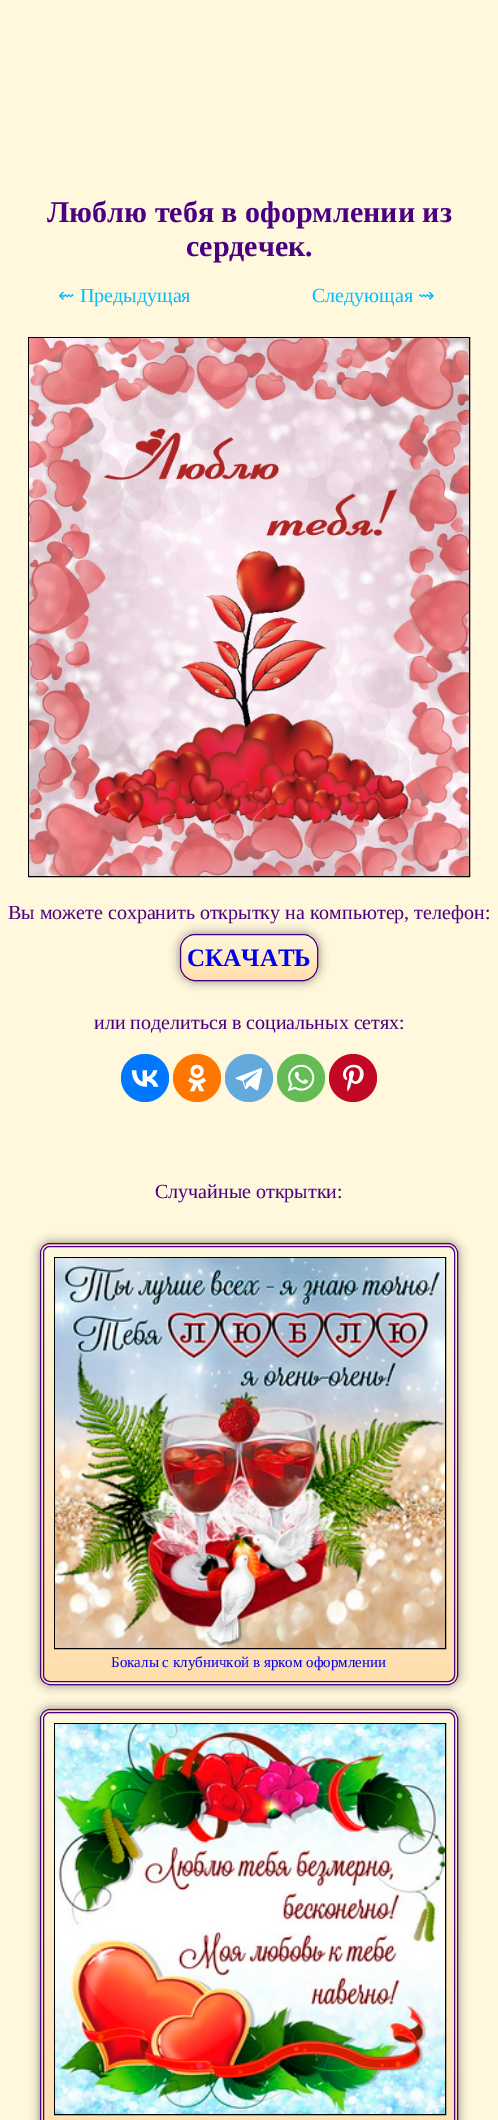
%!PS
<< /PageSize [498 2120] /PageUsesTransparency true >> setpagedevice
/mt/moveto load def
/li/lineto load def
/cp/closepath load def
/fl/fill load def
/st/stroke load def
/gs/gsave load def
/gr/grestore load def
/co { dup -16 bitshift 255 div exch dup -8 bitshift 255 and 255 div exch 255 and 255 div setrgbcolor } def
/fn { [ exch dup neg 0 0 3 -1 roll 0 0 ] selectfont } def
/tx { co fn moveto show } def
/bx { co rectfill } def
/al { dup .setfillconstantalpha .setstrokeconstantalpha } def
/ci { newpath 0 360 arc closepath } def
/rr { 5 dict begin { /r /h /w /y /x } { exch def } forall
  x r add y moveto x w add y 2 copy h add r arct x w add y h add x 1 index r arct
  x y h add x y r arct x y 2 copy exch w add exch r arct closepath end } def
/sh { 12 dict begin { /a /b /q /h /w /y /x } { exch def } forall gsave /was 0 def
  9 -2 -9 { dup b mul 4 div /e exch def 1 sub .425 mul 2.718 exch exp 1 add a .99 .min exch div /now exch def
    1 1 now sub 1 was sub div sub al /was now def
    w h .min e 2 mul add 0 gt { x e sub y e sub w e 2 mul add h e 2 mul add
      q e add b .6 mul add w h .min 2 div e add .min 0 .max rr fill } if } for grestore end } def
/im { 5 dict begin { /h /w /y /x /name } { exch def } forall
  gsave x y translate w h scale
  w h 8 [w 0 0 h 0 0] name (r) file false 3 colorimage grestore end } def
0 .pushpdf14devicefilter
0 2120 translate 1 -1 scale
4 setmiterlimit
0 0 498 2120 16#FFF8DC bx
16#000000 co
28.5 337.5 441 539 rectstroke
(media/1.raw) 29 338 440 538 im
180 934 138 47 15 5 .5 sh
gs
180 934 138 47 15 rr clip newpath
gs 180 935 mt 318 935 li 318 980 li 180 980 li cp clip newpath
<< /ShadingType 2 /ColorSpace /DeviceRGB /Coords [249 935 249 980] /Extend [true true] /Function << /FunctionType 2 /Domain [0 1] /C0 [1 .973 .863] /C1 [1 .871 .678] /N 1 >> >> shfill gr
gr
16#4B0082 co
180.5 934.5 137 46 14.5 rr st
16#0077FF co
145 1078 24 ci fl
(media/2.raw) 131 1070 28 17 im
16#FF7700 co
197 1078 24 ci fl
(media/3.raw) 188 1064 18 28 im
16#64A9DC co
249 1078 24 ci fl
(media/4.raw) 235 1068 28 23 im
16#65BC54 co
301 1078 24 ci fl
(media/5.raw) 287 1064 28 28 im
16#C20724 co
353 1078 24 ci fl
(media/6.raw) 343 1064 21 28 im
16#000000 co
40 1243 418 442 10 5 .5 sh
gs
40 1243 418 442 10 rr clip newpath
gs 40 1243 mt 458 1243 li 458 1247 li 40 1247 li cp clip newpath
<< /ShadingType 2 /ColorSpace /DeviceRGB /Coords [249 813 249 1247] /Extend [true true] /Function << /FunctionType 2 /Domain [0 1] /C0 [1 .973 .863] /C1 [1 .871 .678] /N 1 >> >> shfill gr
gs 40 1247 mt 458 1247 li 458 1681 li 40 1681 li cp clip newpath
<< /ShadingType 2 /ColorSpace /DeviceRGB /Coords [249 1247 249 1681] /Extend [true true] /Function << /FunctionType 2 /Domain [0 1] /C0 [1 .973 .863] /C1 [1 .871 .678] /N 1 >> >> shfill gr
gs 40 1681 mt 458 1681 li 458 1685 li 40 1685 li cp clip newpath
<< /ShadingType 2 /ColorSpace /DeviceRGB /Coords [249 1681 249 2115] /Extend [true true] /Function << /FunctionType 2 /Domain [0 1] /C0 [1 .973 .863] /C1 [1 .871 .678] /N 1 >> >> shfill gr
gr
16#4B0082 co
40.5 1243.5 417 441 9.5 rr st
43.5 1246.5 411 435 6.5 rr st
16#000000 co
54.5 1257.5 391 391 rectstroke
(media/7.raw) 55 1258 390 390 im
40 1709 418 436 10 5 .5 sh
gs
40 1709 418 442 10 rr clip newpath
gs 40 1709 mt 458 1709 li 458 1713 li 40 1713 li cp clip newpath
<< /ShadingType 2 /ColorSpace /DeviceRGB /Coords [249 1279 249 1713] /Extend [true true] /Function << /FunctionType 2 /Domain [0 1] /C0 [1 .973 .863] /C1 [1 .871 .678] /N 1 >> >> shfill gr
gs 40 1713 mt 458 1713 li 458 2120 li 40 2120 li cp clip newpath
<< /ShadingType 2 /ColorSpace /DeviceRGB /Coords [249 1713 249 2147] /Extend [true true] /Function << /FunctionType 2 /Domain [0 1] /C0 [1 .973 .863] /C1 [1 .871 .678] /N 1 >> >> shfill gr
gr
16#4B0082 co
40.5 1709.5 417 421 9.5 rr st
43.5 1712.5 411 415 6.5 rr st
16#000000 co
54.5 1723.5 391 391 rectstroke
(media/8.raw) 55 1724 390 390 im
(Люблю тебя в оформлении из) 47 222 /LiberationSerif-Bold 30 16#4B0082 tx
(сердечек.) 186 256 /LiberationSerif-Bold 30 16#4B0082 tx
(⇜) 58 302 /DejaVuSans-Regular 20 16#00BFFF tx
(Предыдущая) 80 302 /LiberationSerif-Regular 20 16#00BFFF tx
(Следующая) 312 302 /LiberationSerif-Regular 20 16#00BFFF tx
(⇝) 418 302 /DejaVuSans-Regular 20 16#00BFFF tx
(Вы можете сохранить открытку на компьютер, телефон:) 8 919 /LiberationSerif-Regular 20 16#4B0082 tx
(СКАЧАТЬ) 187 966 /LiberationSerif-Bold 25 16#0000EE tx
(или поделиться в социальных сетях:) 94 1029 /LiberationSerif-Regular 20 16#4B0082 tx
(Случайные открытки:) 155 1198 /LiberationSerif-Regular 20 16#4B0082 tx
(Бокалы с клубничкой в ярком оформлении) 111 1667 /LiberationSerif-Regular 15 16#0000EE tx
.poppdf14devicefilter showpage
